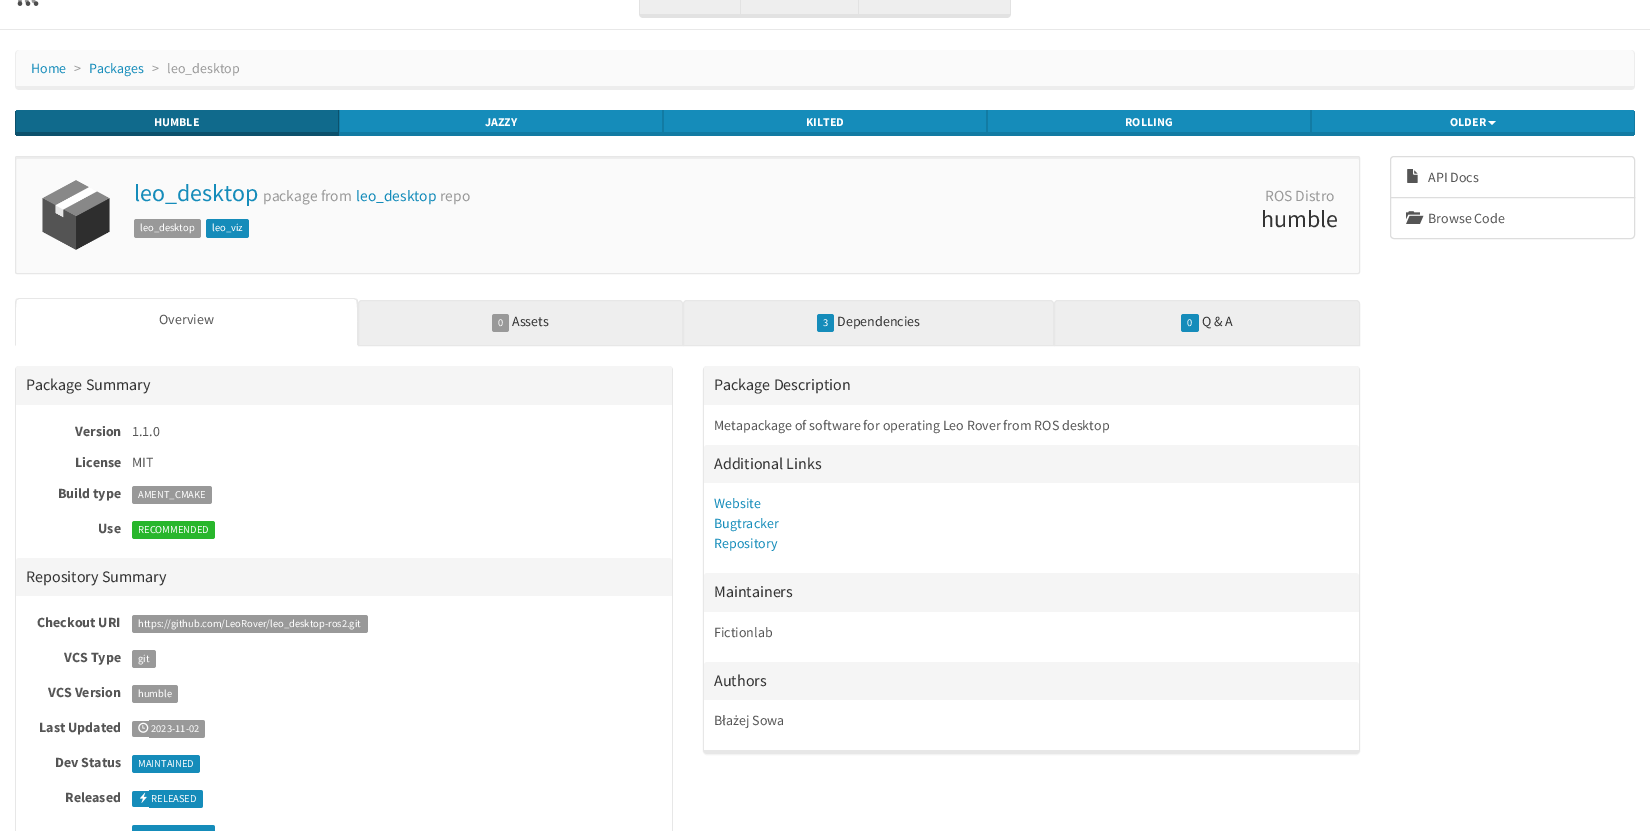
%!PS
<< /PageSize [1650 831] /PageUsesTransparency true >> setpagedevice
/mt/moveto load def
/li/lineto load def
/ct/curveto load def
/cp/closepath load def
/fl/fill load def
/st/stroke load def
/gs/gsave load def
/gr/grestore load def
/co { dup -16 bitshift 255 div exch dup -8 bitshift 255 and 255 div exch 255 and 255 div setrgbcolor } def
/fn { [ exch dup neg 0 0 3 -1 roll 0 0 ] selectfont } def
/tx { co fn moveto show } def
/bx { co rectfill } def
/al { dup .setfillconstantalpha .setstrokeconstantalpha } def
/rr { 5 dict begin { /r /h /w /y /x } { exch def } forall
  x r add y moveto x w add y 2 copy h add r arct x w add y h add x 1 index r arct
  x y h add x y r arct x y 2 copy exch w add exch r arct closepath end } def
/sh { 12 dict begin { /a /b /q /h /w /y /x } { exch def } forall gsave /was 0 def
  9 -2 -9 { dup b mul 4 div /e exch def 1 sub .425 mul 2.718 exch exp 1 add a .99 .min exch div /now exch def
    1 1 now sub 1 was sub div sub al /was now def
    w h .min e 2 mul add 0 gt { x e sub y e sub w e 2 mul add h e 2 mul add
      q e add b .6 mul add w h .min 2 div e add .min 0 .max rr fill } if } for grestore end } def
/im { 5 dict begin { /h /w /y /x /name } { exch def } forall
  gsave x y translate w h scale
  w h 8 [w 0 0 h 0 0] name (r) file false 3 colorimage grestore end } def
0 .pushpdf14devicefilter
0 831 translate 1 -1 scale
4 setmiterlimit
0 0 1650 831 16#FFFFFF bx
0 29 1650 1 16#E8E8E8 bx
(media/1.raw) 17 0 22 6 im
16#EEEEEE co
643 -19 mt 740 -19 li 740 14 li 640 14 li 640 -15 li 640 -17 641 -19 643 -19 ct cp fl
16#E2E2E2 co
643 -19 mt 741 -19 li 741 18 li 643 18 li 641 18 639 16 639 14 ct 639 -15 li 639 -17 641 -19 643 -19 ct cp 643 -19 mt 740 -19 li 740 14 li 640 14 li 640 -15 li 640 -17 641 -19 643 -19 ct cp eofill
741 0 117 14 16#EEEEEE bx
740 14 119 4 16#E2E2E2 bx
16#EEEEEE co
859 -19 mt 1007 -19 li 1009 -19 1010 -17 1010 -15 ct 1010 14 li 859 14 li cp fl
16#E2E2E2 co
858 -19 mt 1007 -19 li 1009 -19 1011 -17 1011 -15 ct 1011 14 li 1011 16 1009 18 1007 18 ct 858 18 li cp 859 -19 mt 1007 -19 li 1009 -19 1010 -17 1010 -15 ct 1010 14 li 859 14 li cp eofill
16#FAFAFA co
19 50 mt 1631 50 li 1633 50 1634 52 1634 54 ct 1634 86 li 16 86 li 16 54 li 16 52 17 50 19 50 ct cp fl
16#EDEDED co
19 50 mt 1631 50 li 1633 50 1635 52 1635 54 ct 1635 86 li 1635 88 1633 90 1631 90 ct 19 90 li 17 90 15 88 15 86 ct 15 54 li 15 52 17 50 19 50 ct cp 19 50 mt 1631 50 li 1633 50 1634 52 1634 54 ct 1634 86 li 16 86 li 16 54 li 16 52 17 50 19 50 ct cp eofill
16#106A8C co
17 110 mt 338 110 li 338 132 li 16 132 li 16 112 li 16 111 16 110 17 110 ct cp fl
338 110 1 26 16#0C516C bx
16 132 323 4 16#0C516C bx
15 111 1 24 16#0C516C bx
340 110 322 22 16#158CBA bx
662 110 1 26 16#127BA3 bx
339 132 324 4 16#127BA3 bx
339 110 1 26 16#127BA3 bx
664 110 322 22 16#158CBA bx
986 110 1 26 16#127BA3 bx
663 132 324 4 16#127BA3 bx
663 110 1 26 16#127BA3 bx
988 110 322 22 16#158CBA bx
1310 110 1 26 16#127BA3 bx
987 132 647 4 16#127BA3 bx
987 110 1 26 16#127BA3 bx
16#158CBA co
1312 110 mt 1633 110 li 1634 110 1634 111 1634 112 ct 1634 132 li 1312 132 li cp fl
1634 111 1 24 16#127BA3 bx
1311 110 1 26 16#127BA3 bx
16#FFFFFF co
1488 121 mt 1496 121 li 1492 125 li cp fl
16#FAFAFA co
15 156 1345 118 2 rr fl
16#EEEEEE co
17 159 mt 1358 159 li 1359 159 1359 159 1359 160 ct 1359 159 1359 157 1358 157 ct 17 157 li 16 158 li 16 160 li 16 159 16 159 17 159 ct cp fl
16#E7E7E7 co
15.5 156.5 1344 117 1.5 rr st
(media/2.raw) 42 180 68 70 im
16#999999 co
134 219 67 19 2.5 rr fl
16#158CBA co
206 219 43 19 2.5 rr fl
16#E7E7E7 co
19 298 mt 16 299 li 17 300 li 19 299 li 354 299 li 356 300 li 357 299 li 354 298 li cp fl
358 346 mt 358 302 li 358 301 358 300 357 299 ct 356 300 li 358 302 357 340 357 345 ct cp fl
16#FFFFFF co
358 346 mt 357 345 li 16 345 li 15 346 li cp fl
16#E7E7E7 co
15 346 mt 16 345 li 16 340 15 302 17 300 ct 16 299 li 15 302 li cp fl
16#EEEEEE co
362 300.5 mt 679 300.5 li 681 300.5 682.5 302 682.5 304 ct 682.5 345.5 li 358.5 345.5 li 358.5 304 li 358.5 302 360 300.5 362 300.5 ct cp gs fl gr
16#E7E7E7 co
st
16#999999 co
492 314 17 18 2.5 rr fl
16#EEEEEE co
687 300.5 mt 1050 300.5 li 1052 300.5 1053.5 302 1053.5 304 ct 1053.5 345.5 li 683.5 345.5 li 683.5 304 li 683.5 302 685 300.5 687 300.5 ct cp gs fl gr
16#E7E7E7 co
st
16#158CBA co
817 314 17 18 2.5 rr fl
16#EEEEEE co
1058 300.5 mt 1356 300.5 li 1358 300.5 1359.5 302 1359.5 304 ct 1359.5 345.5 li 1054.5 345.5 li 1054.5 304 li 1054.5 302 1056 300.5 1058 300.5 ct cp gs fl gr
16#E7E7E7 co
st
16#158CBA co
1181 314 18 18 2.5 rr fl
16#E7E7E7 co
19 366 mt 669 366 li 671 366 673 368 673 370 ct 673 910 li 673 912 671 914 669 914 ct 19 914 li 17 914 15 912 15 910 ct 15 370 li 15 368 17 366 19 366 ct cp 19 366 mt 669 366 li 671 366 672 368 672 370 ct 672 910 li 16 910 li 16 370 li 16 368 17 366 19 366 ct cp eofill
16#F5F5F5 co
19 366 mt 669 366 li 670.5 366 672 367.5 672 369 ct 672 405 li 16 405 li 16 369 li 16 367.5 17.5 366 19 366 ct cp fl
16#999999 co
132 486 80 18 2.5 rr fl
16#28B62C co
132 521 83 18 2.5 rr fl
16#F5F5F5 co
19 558 mt 669 558 li 670.5 558 672 559.5 672 561 ct 672 596 li 16 596 li 16 561 li 16 559.5 17.5 558 19 558 ct cp fl
16#999999 co
132 615 236 18 2.5 rr fl
132 650 24 18 2.5 rr fl
132 685 46 18 2.5 rr fl
134.5 721 mt 149 721 li 149 737 li 134.5 737 li 133 737 132 736 132 734.5 ct 132 723.5 li 132 722 133 721 134.5 721 ct cp fl
149 720 mt 202.5 720 li 204 720 205 721 205 722.5 ct 205 735.5 li 205 737 204 738 202.5 738 ct 149 738 li cp fl
(media/3.raw) 138 722 11 11 im
16#158CBA co
132 755 68 18 2.5 rr fl
134.5 791 mt 149 791 li 149 807 li 134.5 807 li 133 807 132 806 132 804.5 ct 132 793.5 li 132 792 133 791 134.5 791 ct cp fl
149 790 mt 200.5 790 li 202 790 203 791 203 792.5 ct 203 805.5 li 203 807 202 808 200.5 808 ct 149 808 li cp fl
(media/4.raw) 140 792 7 11 im
134.5 825 mt 200 825 li 200 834 li 134.5 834 li 133 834 132 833 132 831.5 ct 132 827.5 li 132 826 133 825 134.5 825 ct cp fl
200 825 5 6 16#158CBA bx
205 825 mt 212.5 825 li 214 825 215 826 215 827.5 ct 215 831.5 li 215 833 214 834 212.5 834 ct 205 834 li cp fl
gs
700 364 mt 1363 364 li 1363 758 li 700 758 li cp 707 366 mt 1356 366 li 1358 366 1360 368 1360 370 ct 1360 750 li 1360 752 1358 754 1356 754 ct 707 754 li 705 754 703 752 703 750 ct 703 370 li 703 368 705 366 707 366 ct cp eoclip newpath
16#000000 co
703 367 657 388 4 .5 .05 sh
gr
16#E7E7E7 co
707 366 mt 1356 366 li 1358 366 1360 368 1360 370 ct 1360 750 li 1360 752 1358 754 1356 754 ct 707 754 li 705 754 703 752 703 750 ct 703 370 li 703 368 705 366 707 366 ct cp 707 366 mt 1356 366 li 1358 366 1359 368 1359 370 ct 1359 750 li 704 750 li 704 370 li 704 368 705 366 707 366 ct cp eofill
16#F5F5F5 co
707 366 mt 1356 366 li 1357.5 366 1359 367.5 1359 369 ct 1359 405 li 704 405 li 704 369 li 704 367.5 705.5 366 707 366 ct cp fl
707 445 mt 1356 445 li 1357.5 445 1359 446.5 1359 448 ct 1359 483 li 704 483 li 704 448 li 704 446.5 705.5 445 707 445 ct cp fl
707 573 mt 1356 573 li 1357.5 573 1359 574.5 1359 576 ct 1359 612 li 704 612 li 704 576 li 704 574.5 705.5 573 707 573 ct cp fl
707 662 mt 1356 662 li 1357.5 662 1359 663.5 1359 665 ct 1359 700 li 704 700 li 704 665 li 704 663.5 705.5 662 707 662 ct cp fl
16#DDDDDD co
1394 156.5 mt 1631 156.5 li 1633 156.5 1634.5 158 1634.5 160 ct 1634.5 197.5 li 1390.5 197.5 li 1390.5 160 li 1390.5 158 1392 156.5 1394 156.5 ct cp st
(media/5.raw) 1407 169 11 14 im
16#FFFFFF co
1390.5 197.5 mt 1634.5 197.5 li 1634.5 235 li 1634.5 237 1633 238.5 1631 238.5 ct 1394 238.5 li 1392 238.5 1390.5 237 1390.5 235 ct cp gs fl gr
16#DDDDDD co
st
(media/6.raw) 1406 211 18 13 im
(Home) 31 73 /SourceSansPro-Regular 14 16#158CBA tx
(>) 74 73 /SourceSansPro-Regular 14 16#999999 tx
(Packages) 89 73 /SourceSansPro-Regular 14 16#158CBA tx
(>) 152 73 /SourceSansPro-Regular 14 16#999999 tx
(leo_desktop) 167 73 /SourceSansPro-Regular 14 16#999999 tx
(HUMBLE) 154 126 /SourceSansPro-Bold 12 16#FFFFFF tx
(JAZZY) 485 126 /SourceSansPro-Bold 12 16#FFFFFF tx
(KILTED) 806 126 /SourceSansPro-Bold 12 16#FFFFFF tx
(ROLLING) 1125 126 /SourceSansPro-Bold 12 16#FFFFFF tx
(OLDER) 1450 126 /SourceSansPro-Bold 12 16#FFFFFF tx
(leo_desktop) 134 201 /SourceSansPro-Regular 24 16#158CBA tx
(package from) 263 201 /SourceSansPro-Regular 15.5 16#999999 tx
(leo_desktop) 356 201 /SourceSansPro-Regular 15.5 16#158CBA tx
(repo) 440 201 /SourceSansPro-Regular 15.5 16#999999 tx
(leo_desktop) 140 231 /SourceSansPro-Regular 10.5 16#FFFFFF tx
(leo_viz) 212 231 /SourceSansPro-Regular 10.5 16#FFFFFF tx
(ROS Distro) 1265 201 /SourceSansPro-Regular 15.5 16#999999 tx
(humble) 1261 227 /SourceSansPro-Regular 24 16#333333 tx
(Overview) 159 324 /SourceSansPro-Regular 14 16#555555 tx
(0) 498 326 /SourceSansPro-Regular 10.5 16#FFFFFF tx
(Assets) 512 326 /SourceSansPro-Regular 14 16#333333 tx
(3) 823 326 /SourceSansPro-Regular 10.5 16#FFFFFF tx
(Dependencies) 837 326 /SourceSansPro-Regular 14 16#333333 tx
(0) 1187 326 /SourceSansPro-Regular 10.5 16#FFFFFF tx
(Q & A) 1202 326 /SourceSansPro-Regular 14 16#333333 tx
(Package Summary) 26 390 /SourceSansPro-Regular 16 16#333333 tx
(Version) 75 436 /SourceSansPro-Bold 14 16#555555 tx
(1.1.0) 132 436 /SourceSansPro-Regular 14 16#555555 tx
(License) 75 467 /SourceSansPro-Bold 14 16#555555 tx
(MIT) 132 467 /SourceSansPro-Regular 14 16#555555 tx
(Build type) 58 498 /SourceSansPro-Bold 14 16#555555 tx
(AMENT_CMAKE) 138 498 /SourceSansPro-Regular 10.5 16#FFFFFF tx
(Use) 98 533 /SourceSansPro-Bold 14 16#555555 tx
(RECOMMENDED) 138 533 /SourceSansPro-Regular 10.5 16#FFFFFF tx
(Repository Summary) 26 582 /SourceSansPro-Regular 16 16#333333 tx
(Checkout URI) 37 627 /SourceSansPro-Bold 14 16#555555 tx
(https://github.com/LeoRover/leo_desktop-ros2.git) 138 627 /SourceSansPro-Regular 10.5 16#FFFFFF tx
(VCS Type) 64 662 /SourceSansPro-Bold 14 16#555555 tx
(git) 138 662 /SourceSansPro-Regular 10.5 16#FFFFFF tx
(VCS Version) 48 697 /SourceSansPro-Bold 14 16#555555 tx
(humble) 138 697 /SourceSansPro-Regular 10.5 16#FFFFFF tx
(Last Updated) 39 732 /SourceSansPro-Bold 14 16#555555 tx
(2023-11-02) 151 732 /SourceSansPro-Regular 10.5 16#FFFFFF tx
(Dev Status) 55 767 /SourceSansPro-Bold 14 16#555555 tx
(MAINTAINED) 138 767 /SourceSansPro-Regular 10.5 16#FFFFFF tx
(Released) 65 802 /SourceSansPro-Bold 14 16#555555 tx
(RELEASED) 151 802 /SourceSansPro-Regular 10.5 16#FFFFFF tx
(Package Description) 714 390 /SourceSansPro-Regular 16 16#333333 tx
(Metapackage of software for operating Leo Rover from ROS desktop) 714 430 /SourceSansPro-Regular 14 16#555555 tx
(Additional Links) 714 469 /SourceSansPro-Regular 16 16#333333 tx
(Website) 714 508 /SourceSansPro-Regular 14 16#158CBA tx
(Bugtracker) 714 528 /SourceSansPro-Regular 14 16#158CBA tx
(Repository) 714 548 /SourceSansPro-Regular 14 16#158CBA tx
(Maintainers) 714 597 /SourceSansPro-Regular 16 16#333333 tx
(Fictionlab) 714 637 /SourceSansPro-Regular 14 16#555555 tx
(Authors) 714 686 /SourceSansPro-Regular 16 16#333333 tx
(Błażej Sowa) 714 725 /SourceSansPro-Regular 14 16#555555 tx
(API Docs) 1428 182 /SourceSansPro-Regular 14 16#555555 tx
(Browse Code) 1428 223 /SourceSansPro-Regular 14 16#555555 tx
.poppdf14devicefilter showpage
